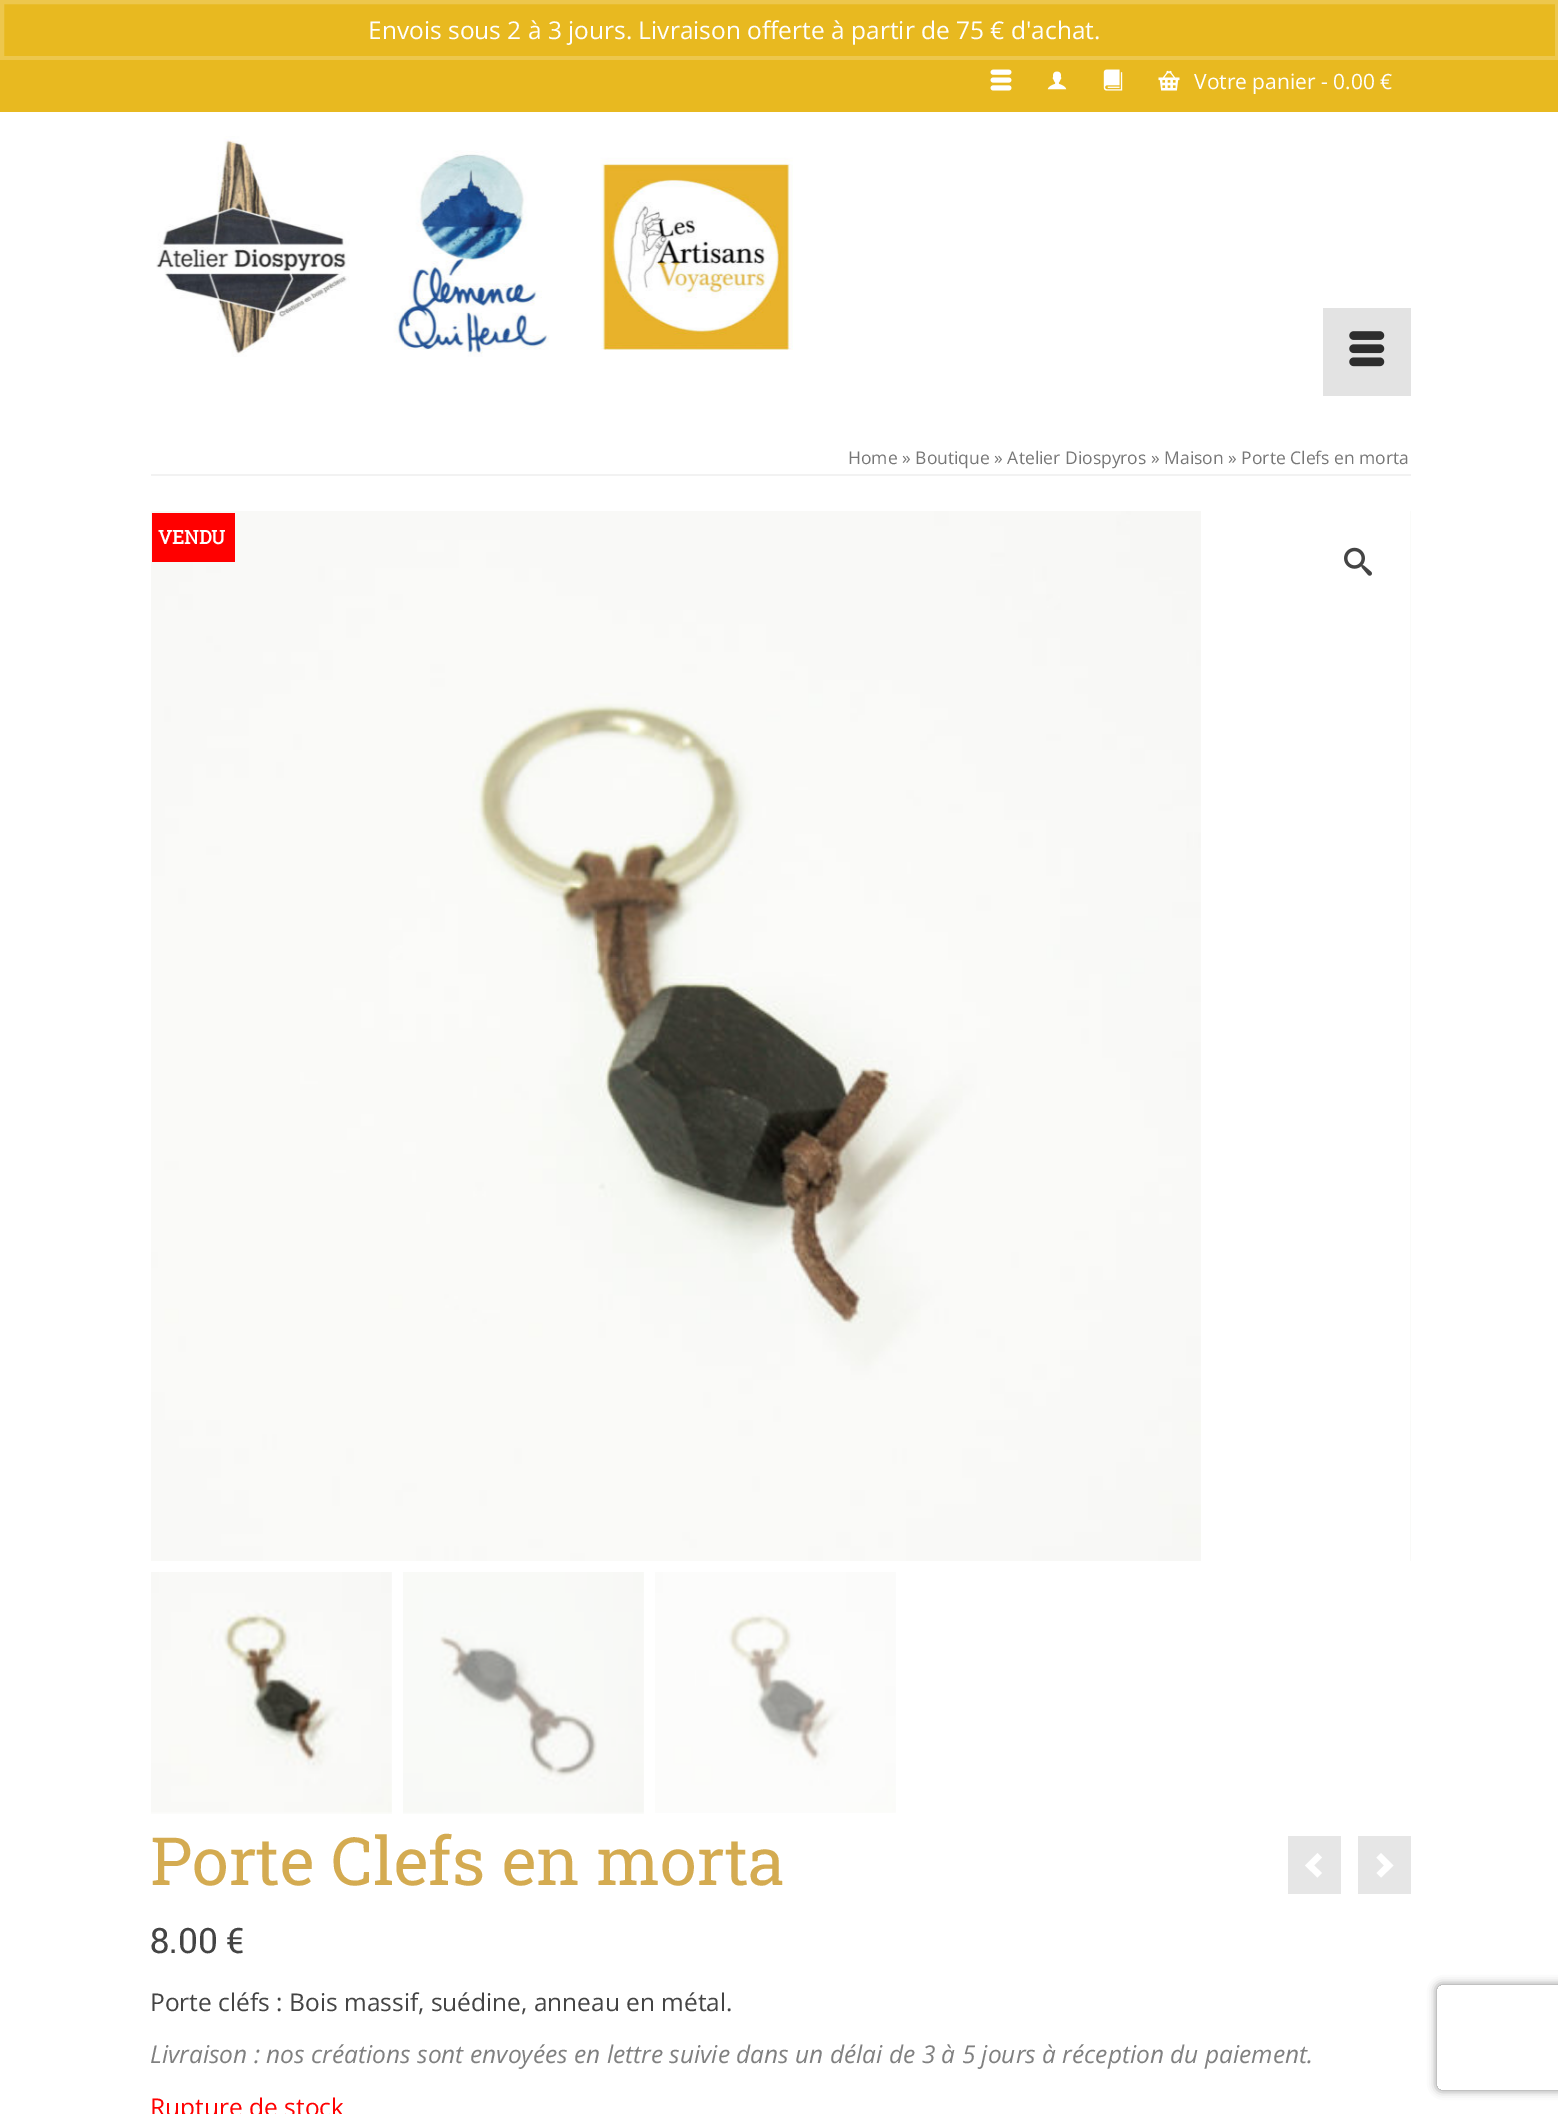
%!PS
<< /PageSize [1558 2114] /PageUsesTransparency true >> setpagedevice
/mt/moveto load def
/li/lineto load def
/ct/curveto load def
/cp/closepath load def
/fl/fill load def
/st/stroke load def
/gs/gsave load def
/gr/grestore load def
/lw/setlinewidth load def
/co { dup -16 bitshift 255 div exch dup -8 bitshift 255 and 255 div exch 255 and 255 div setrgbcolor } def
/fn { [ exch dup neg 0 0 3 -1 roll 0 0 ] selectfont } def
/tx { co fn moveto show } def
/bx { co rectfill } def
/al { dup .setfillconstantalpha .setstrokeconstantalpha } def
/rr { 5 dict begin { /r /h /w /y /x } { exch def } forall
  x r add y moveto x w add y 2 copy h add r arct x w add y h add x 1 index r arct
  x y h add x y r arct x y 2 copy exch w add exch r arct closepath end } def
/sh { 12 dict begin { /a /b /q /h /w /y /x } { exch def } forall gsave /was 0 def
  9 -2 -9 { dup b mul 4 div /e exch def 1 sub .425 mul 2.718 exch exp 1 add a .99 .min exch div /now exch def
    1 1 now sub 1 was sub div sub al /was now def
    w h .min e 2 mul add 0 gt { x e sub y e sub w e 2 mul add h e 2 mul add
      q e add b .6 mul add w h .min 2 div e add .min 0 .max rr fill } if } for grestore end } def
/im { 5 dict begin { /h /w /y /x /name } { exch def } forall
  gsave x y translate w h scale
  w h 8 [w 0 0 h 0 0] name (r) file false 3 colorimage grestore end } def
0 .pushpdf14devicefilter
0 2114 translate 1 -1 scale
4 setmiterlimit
0 0 1558 2114 16#FFFFFF bx
16#E8B920 co
2 2 mt 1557 2 li 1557 58 li 2 58 li cp gs fl gr
16#EDC74D co
4 lw
st
0 60 1558 52 16#E8B920 bx
(media/1.raw) 990 69 22 22 im
(media/2.raw) 1047 71 20 19 im
(media/3.raw) 1103 69 20 22 im
(media/4.raw) 1158 70 22 21 im
(media/5.raw) 156 136 637 221 im
1323 308 88 88 16#E3E3E3 bx
(media/6.raw) 1349 331 36 36 im
151 474 1260 2 16#F2F2F2 bx
(media/7.raw) 151 511 1050 1050 im
(media/8.raw) 1410 511 1 1050 im
(media/9.raw) 1344 547 28 29 im
(media/10.raw) 151 1572 241 242 im
(media/11.raw) 403 1572 241 242 im
(media/12.raw) 655 1572 241 241 im
152 513 83 49 16#FF0000 bx
1288 1836 53 58 16#E6E6E6 bx
1358 1836 53 58 16#E6E6E6 bx
16#FFFFFF co
1317.5 1877.5 mt 1322 1873 li 1314 1865.5 li 1322 1857.5 li 1317.5 1853 li 1305 1865.5 li cp fl
1381 1853 mt 1376.5 1857.5 li 1384 1865.5 li 1376.5 1873 li 1381 1877.5 li 1393.5 1865.5 li cp fl
gs
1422 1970 mt 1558 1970 li 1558 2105 li 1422 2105 li cp 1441 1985 mt 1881 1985 li 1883 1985 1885 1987 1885 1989 ct 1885 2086 li 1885 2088 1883 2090 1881 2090 ct 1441 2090 li 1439 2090 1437 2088 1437 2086 ct 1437 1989 li 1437 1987 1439 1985 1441 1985 ct cp eoclip newpath
16#808080 co
1437 1985 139 105 4 4.5 1 sh
gr
(Envois sous 2 à 3 jours. Livraison offerte à partir de 75 € d'achat.) 368 39 /OpenSans-Regular 24.5 16#FFFFFF tx
(Votre panier - 0.00 €) 1194 89 /OpenSans-Regular 21 16#FFFFFF tx
(Home » Boutique » Atelier Diospyros » Maison » Porte Clefs en morta) 848 464 /OpenSans-Regular 17.5 16#777777 tx
(VENDU) 158 544 /RobotoSlab-Bold 19 16#FFFFFF tx
(Porte Clefs en morta) 150 1885 /RobotoSlab-Regular 66.5 16#D4AB51 tx
(8.00 €) 150 1953 /RobotoSlab-Regular 35 16#444444 tx
(Porte cléfs : Bois massif, suédine, anneau en métal.) 150 2011 /OpenSans-Regular 24.5 16#444444 tx
(Livraison : nos créations sont envoyées en lettre suivie dans un délai de 3 à 5 jours à réception du paiement.) 150 2063 /OpenSans-Italic 24.5 16#808080 tx
(Rupture de stock) 150 2116 /OpenSans-Regular 24.5 16#FF0000 tx
.poppdf14devicefilter showpage
